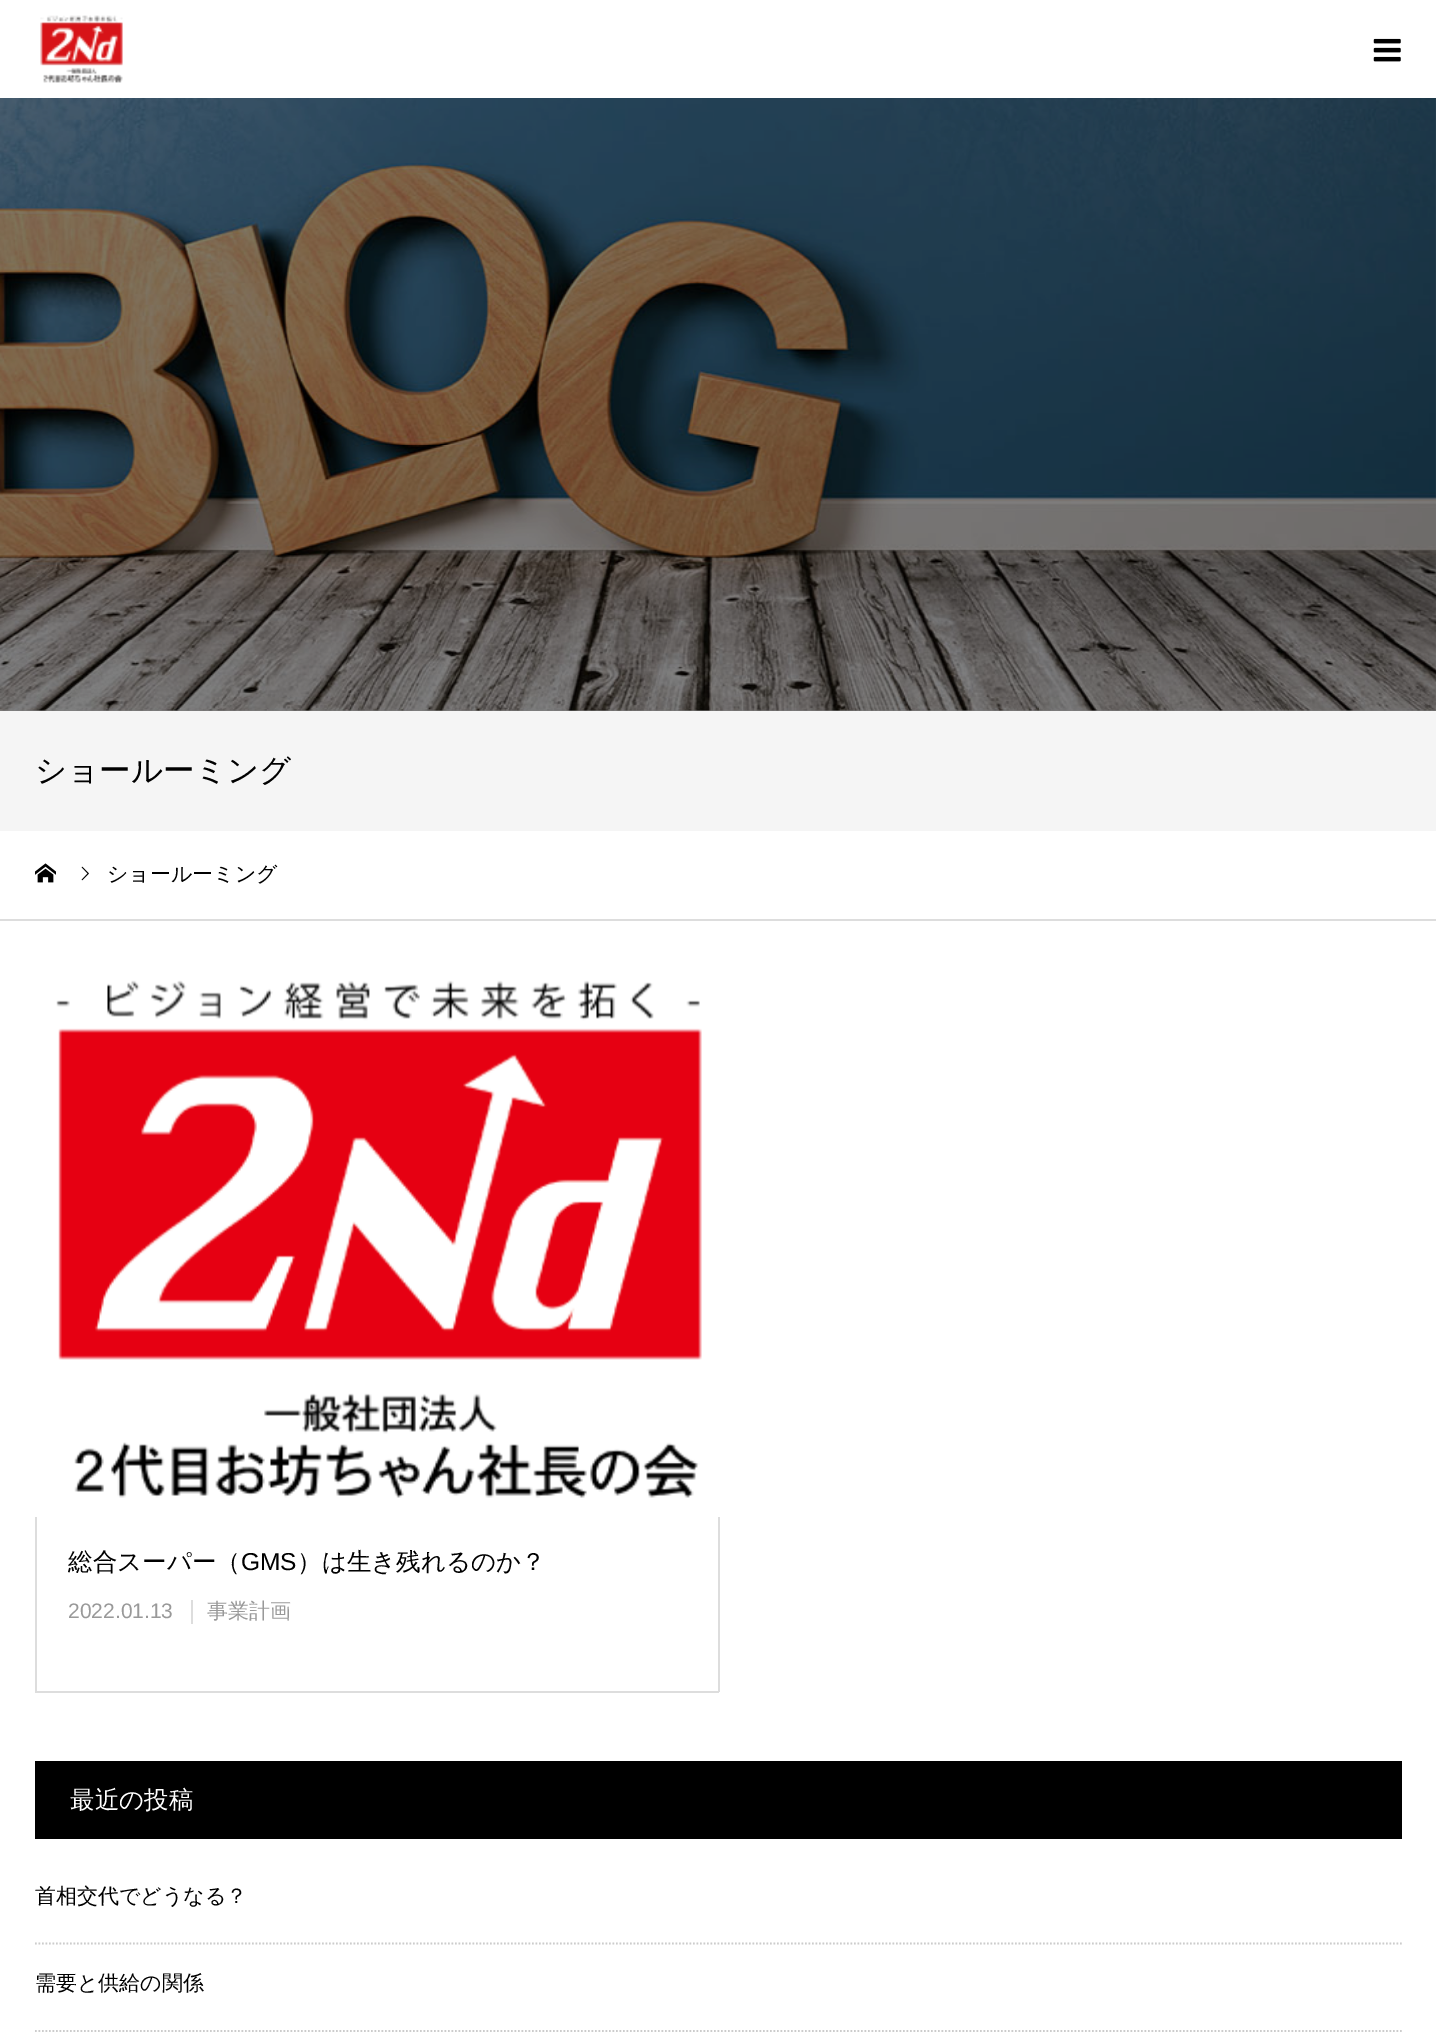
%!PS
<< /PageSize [1436 2037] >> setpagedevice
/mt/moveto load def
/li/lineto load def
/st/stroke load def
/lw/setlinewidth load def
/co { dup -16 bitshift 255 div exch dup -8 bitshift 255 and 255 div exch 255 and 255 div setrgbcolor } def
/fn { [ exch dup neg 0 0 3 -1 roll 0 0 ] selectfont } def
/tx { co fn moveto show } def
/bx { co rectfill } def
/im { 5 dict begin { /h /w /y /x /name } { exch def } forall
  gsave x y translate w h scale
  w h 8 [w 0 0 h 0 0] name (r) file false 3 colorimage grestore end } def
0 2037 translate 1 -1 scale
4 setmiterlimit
0 0 1436 2037 16#FFFFFF bx
0 98 1436 613 16#808080 bx
(media/1.raw) 40 15 83 68 im
(media/2.raw) 1373 38 28 24 im
(media/3.raw) 0 98 1436 613 im
0 711 1436 120 16#F5F5F5 bx
0 919 1436 2 16#DDDDDD bx
(media/4.raw) 35 863 21 20 im
(media/5.raw) 81 866 8 15 im
(media/6.raw) 56 980 646 518 im
718 1517 2 175 16#DDDDDD bx
35 1691 684 2 16#DDDDDD bx
35 1517 2 175 16#DDDDDD bx
191 1600 2 24 16#DDDDDD bx
35 1761 1367 78 16#000000 bx
16#CCCCCC co
1.8 lw
[1.75 1.75] 0 setdash
35 1943.5 mt 1402 1943.5 li st
35 2031 mt 1402 2031 li st
(ショールーミング) 35 781 /WenQuanYiZenHei-Medium 31.5 16#000000 tx
(ショールーミング) 107 881 /WenQuanYiZenHei-Medium 21 16#000000 tx
(総合スーパー（) 68 1570 /WenQuanYiZenHei-Medium 24.5 16#000000 tx
(GMS) 241 1570 /LiberationSans-Regular 24.5 16#000000 tx
(）は生き残れるのか？) 297 1570 /WenQuanYiZenHei-Medium 24.5 16#000000 tx
(2022.01.13) 68 1618 /LiberationSans-Regular 21 16#999999 tx
(事業計画) 207 1618 /WenQuanYiZenHei-Medium 21 16#999999 tx
(最近の投稿) 70 1808 /WenQuanYiZenHei-Medium 24.5 16#FFFFFF tx
(首相交代でどうなる？) 35 1903 /WenQuanYiZenHei-Medium 21 16#000000 tx
(需要と供給の関係) 35 1990 /WenQuanYiZenHei-Medium 21 16#000000 tx
showpage
